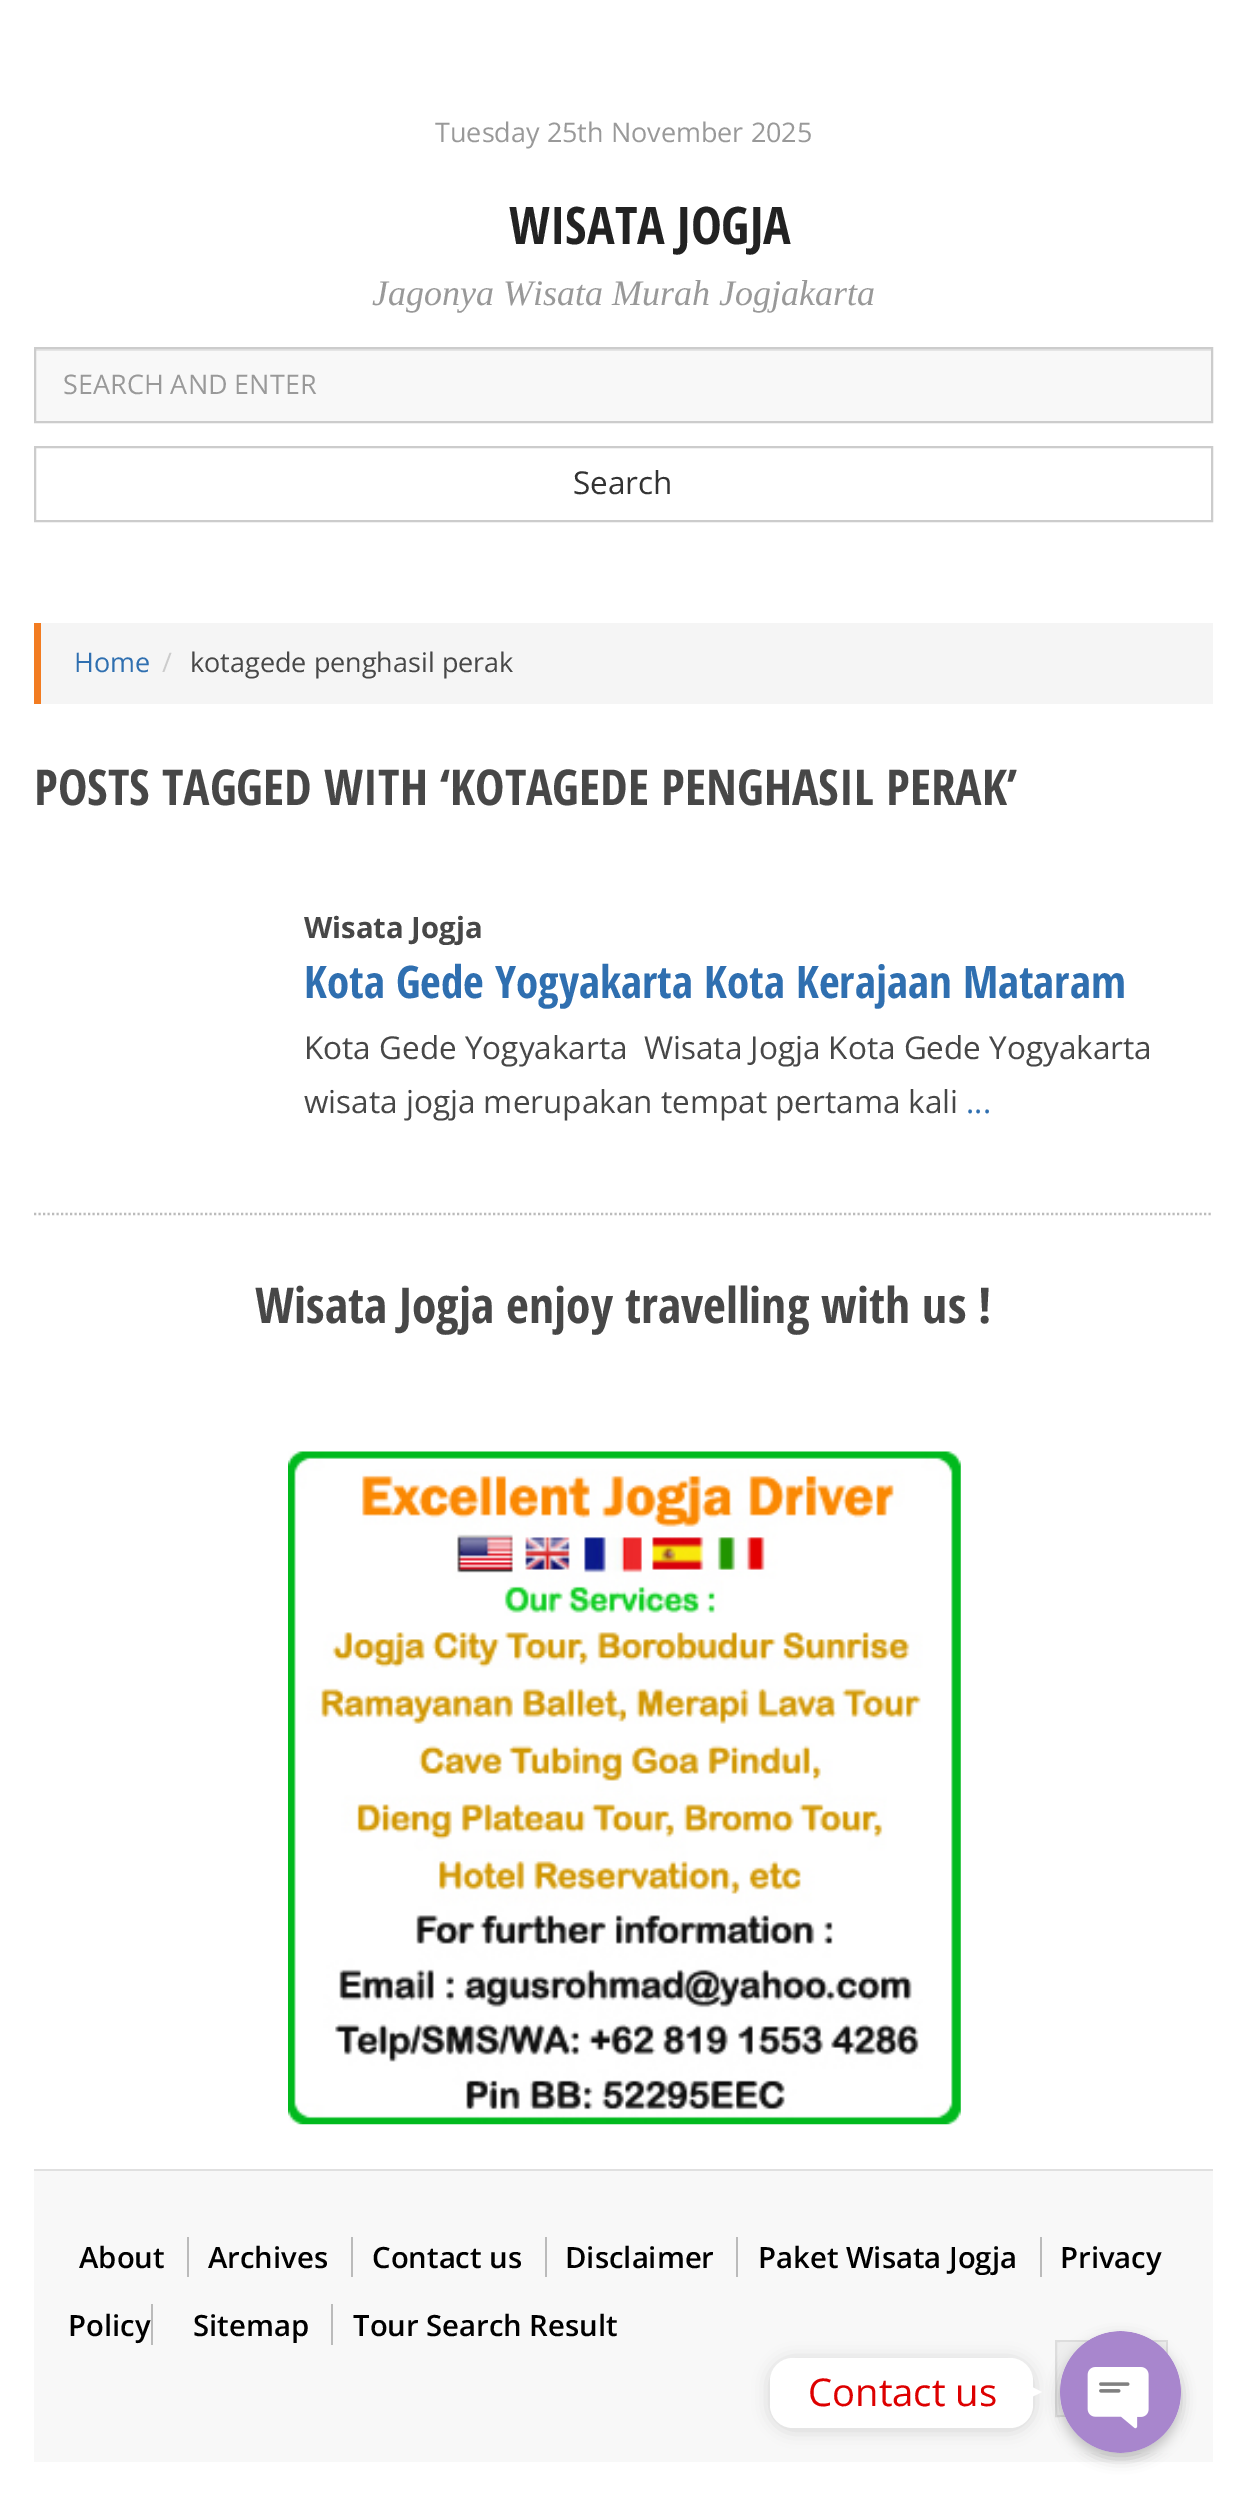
%!PS
<< /PageSize [1245 2516] /PageUsesTransparency true >> setpagedevice
/mt/moveto load def
/li/lineto load def
/cp/closepath load def
/fl/fill load def
/st/stroke load def
/gs/gsave load def
/gr/grestore load def
/lw/setlinewidth load def
/co { dup -16 bitshift 255 div exch dup -8 bitshift 255 and 255 div exch 255 and 255 div setrgbcolor } def
/fn { [ exch dup neg 0 0 3 -1 roll 0 0 ] selectfont } def
/tx { co fn moveto show } def
/bx { co rectfill } def
/al { dup .setfillconstantalpha .setstrokeconstantalpha } def
/rr { 5 dict begin { /r /h /w /y /x } { exch def } forall
  x r add y moveto x w add y 2 copy h add r arct x w add y h add x 1 index r arct
  x y h add x y r arct x y 2 copy exch w add exch r arct closepath end } def
/sh { 12 dict begin { /a /b /q /h /w /y /x } { exch def } forall gsave /was 0 def
  9 -2 -9 { dup b mul 4 div /e exch def 1 sub .425 mul 2.718 exch exp 1 add a .99 .min exch div /now exch def
    1 1 now sub 1 was sub div sub al /was now def
    w h .min e 2 mul add 0 gt { x e sub y e sub w e 2 mul add h e 2 mul add
      q e add b .6 mul add w h .min 2 div e add .min 0 .max rr fill } if } for grestore end } def
/im { 5 dict begin { /h /w /y /x /name } { exch def } forall
  gsave x y translate w h scale
  w h 8 [w 0 0 h 0 0] name (r) file false 3 colorimage grestore end } def
0 .pushpdf14devicefilter
0 2516 translate 1 -1 scale
4 setmiterlimit
0 0 1245 2516 16#FFFFFF bx
36 351 1175 70 16#F8F8F8 bx
36 349 1175 2 16#E5E5E5 bx
16#CCCCCC co
2 lw
35 348 1177 74 rectstroke
35 447 1177 74 rectstroke
41 623 1172 81 16#F5F5F5 bx
34 623 7 81 16#F27C21 bx
16#BBBBBB co
2.2 lw
[2.25 2.25] 0 setdash
34 1214 mt 1213 1214 li st
(media/1.raw) 288 1451 673 674 im
34 2171 1179 291 16#F8F8F8 bx
34 2169 1179 2 16#E0E0E0 bx
187 2237 2 40 16#BBBBBB bx
351 2237 2 40 16#BBBBBB bx
545 2237 2 40 16#BBBBBB bx
736 2237 2 40 16#BBBBBB bx
1040 2237 2 40 16#BBBBBB bx
151 2304 2 41 16#BBBBBB bx
331 2304 2 41 16#BBBBBB bx
16#EEEEEE co
1056 2341 mt 1167 2341 li 1167 2416 li 1056 2416 li cp gs fl gr
16#DDDDDD co
2 lw
[] 0 setdash
st
16#000000 co
770 2360 263 70 23 8.5 .15 sh
16#FFFFFF co
770 2358 263 70 23 rr fl
16#000000 co
1060 2338 121 121 60.5 7 .25 sh
16#FFFFFF co
1019 2403 mt 1019 2380.5 li 1042 2392 li cp fl
(media/2.raw) 1060 2331 121 122 im
(Tuesday 25th November 2025) 435 142 /OpenSans-Regular 27 16#999999 tx
(WISATA JOGJA) 509 244 /OpenSansCondensed-Bold 51.75 16#222222 tx
(Jagonya Wisata Murah Jogjakarta) 372 305 /LiberationSerif-Italic 36 16#999999 tx
(SEARCH AND ENTER) 63 394 /OpenSans-Regular 27 16#999999 tx
(Search) 573 494 /OpenSans-Regular 31.5 16#333333 tx
(Home) 74 672 /OpenSans-Regular 27 16#2F6FB0 tx
(/) 162 672 /OpenSans-Regular 27 16#CCCCCC tx
(kotagede penghasil perak) 190 672 /OpenSans-Regular 27 16#474747 tx
(POSTS TAGGED WITH ‘KOTAGEDE PENGHASIL PERAK’) 34 805 /OpenSansCondensed-Bold 49.5 16#474747 tx
(Wisata Jogja) 304 938 /OpenSans-Bold 29.25 16#474747 tx
(Kota Gede Yogyakarta Kota Kerajaan Mataram) 304 998 /OpenSansCondensed-Bold 45 16#2F6FB0 tx
(Kota Gede Yogyakarta  Wisata Jogja Kota Gede Yogyakarta) 304 1059 /OpenSans-Regular 31.5 16#474747 tx
(wisata jogja merupakan tempat pertama kali) 304 1113 /OpenSans-Regular 31.5 16#474747 tx
(...) 966 1113 /OpenSans-Regular 31.5 16#2F6FB0 tx
(Wisata Jogja enjoy travelling with us !) 255 1323 /OpenSansCondensed-Bold 49.5 16#474747 tx
(About) 79 2268 /OpenSans-SemiBold 29.25 16#000000 tx
(Archives) 208 2268 /OpenSans-SemiBold 29.25 16#000000 tx
(Contact us) 372 2268 /OpenSans-SemiBold 29.25 16#000000 tx
(Disclaimer) 565 2268 /OpenSans-SemiBold 29.25 16#000000 tx
(Paket Wisata Jogja) 758 2268 /OpenSans-SemiBold 29.25 16#000000 tx
(Privacy) 1060 2268 /OpenSans-SemiBold 29.25 16#000000 tx
(Policy) 68 2336 /OpenSans-SemiBold 29.25 16#000000 tx
(Sitemap) 193 2336 /OpenSans-SemiBold 29.25 16#000000 tx
(Tour Search Result) 353 2336 /OpenSans-SemiBold 29.25 16#000000 tx
(Contact us) 808 2406 /OpenSans-Regular 38.25 16#DD0000 tx
.poppdf14devicefilter showpage
